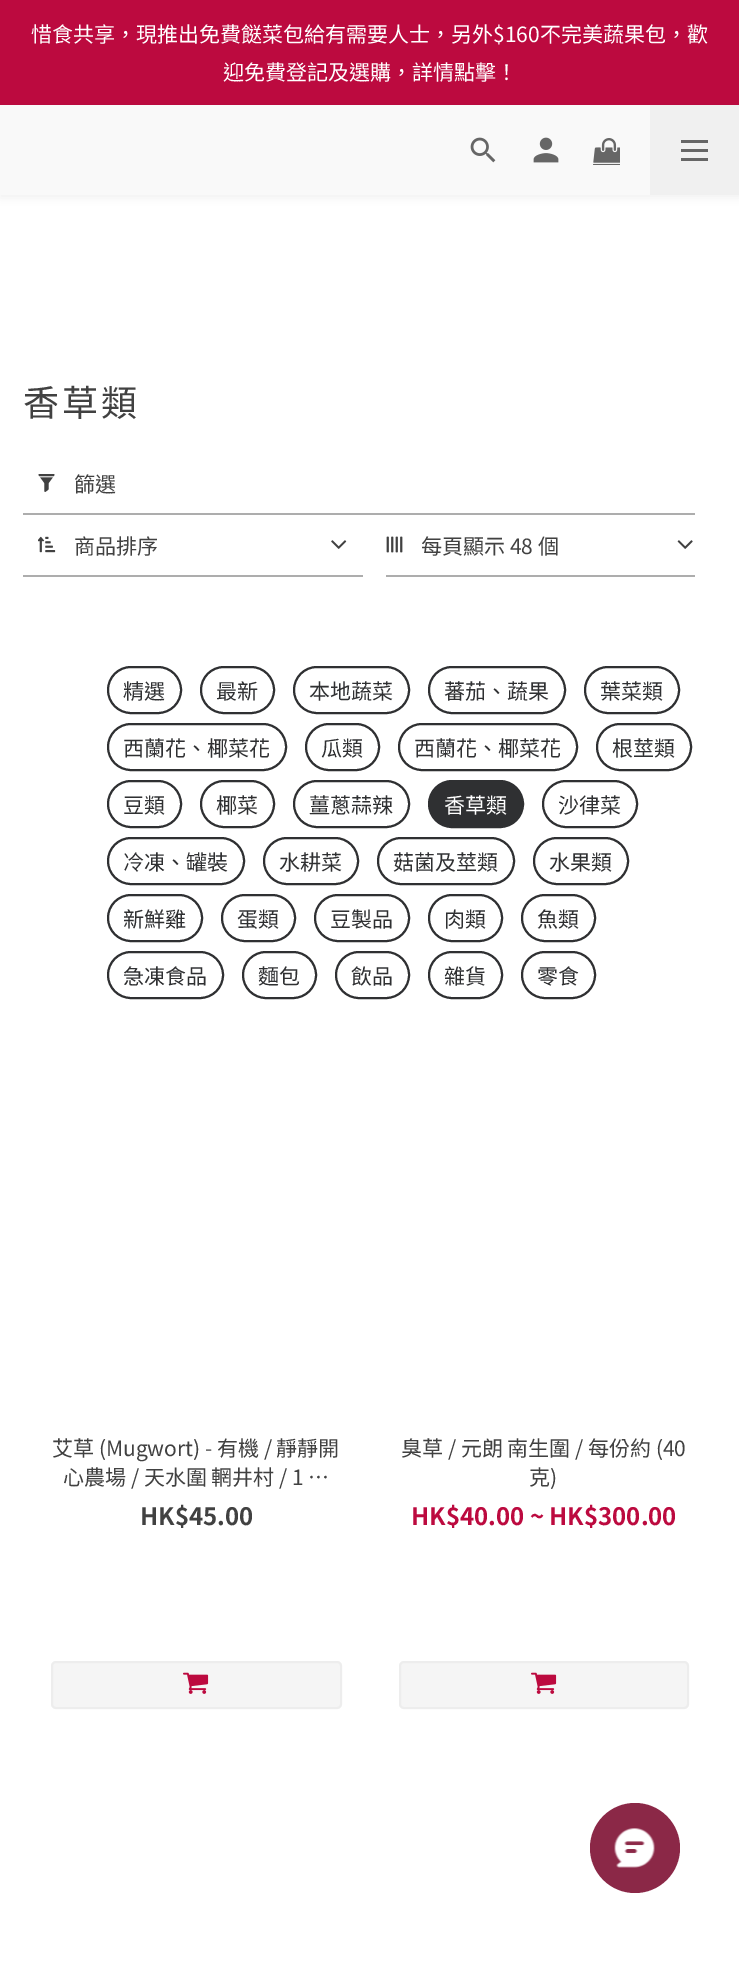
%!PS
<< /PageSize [739 1976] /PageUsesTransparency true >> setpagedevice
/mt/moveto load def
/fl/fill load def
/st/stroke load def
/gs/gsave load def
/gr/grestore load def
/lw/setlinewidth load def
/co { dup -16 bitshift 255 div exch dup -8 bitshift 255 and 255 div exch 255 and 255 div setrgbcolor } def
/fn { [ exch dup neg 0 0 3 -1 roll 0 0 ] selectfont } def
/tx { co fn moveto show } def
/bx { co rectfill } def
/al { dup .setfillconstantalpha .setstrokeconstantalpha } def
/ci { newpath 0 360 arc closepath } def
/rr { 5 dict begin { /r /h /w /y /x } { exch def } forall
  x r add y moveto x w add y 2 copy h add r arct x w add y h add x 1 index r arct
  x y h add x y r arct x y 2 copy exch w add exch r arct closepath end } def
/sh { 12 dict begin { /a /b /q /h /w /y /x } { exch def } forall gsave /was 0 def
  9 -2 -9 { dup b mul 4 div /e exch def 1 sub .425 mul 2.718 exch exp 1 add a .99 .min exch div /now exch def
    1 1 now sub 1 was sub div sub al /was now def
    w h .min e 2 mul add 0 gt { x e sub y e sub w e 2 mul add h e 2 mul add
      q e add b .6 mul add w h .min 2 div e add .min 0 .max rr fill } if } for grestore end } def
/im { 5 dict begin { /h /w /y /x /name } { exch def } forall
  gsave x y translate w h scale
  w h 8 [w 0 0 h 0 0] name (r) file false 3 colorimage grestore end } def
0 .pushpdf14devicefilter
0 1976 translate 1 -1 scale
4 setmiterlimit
0 0 739 1976 16#FFFFFF bx
0 0 739 105 16#BC0A3F bx
16#000000 co
0 108 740 90 0 4.5 .06 sh
0 105 650 90 16#F9F9F9 bx
(media/1.raw) 470 137 26 26 im
(media/2.raw) 533 137 26 26 im
(media/3.raw) 593 138 27 27 im
650 105 89 90 16#F0F0F0 bx
681 149 27 3 16#666666 bx
681 140 27 3 16#666666 bx
681 158 27 3 16#666666 bx
23 513 672 2 16#ADADAD bx
(media/4.raw) 38 474 17 18 im
23 575 340 2 16#ADADAD bx
(media/5.raw) 38 536 18 17 im
(media/6.raw) 331 540 16 9 im
386 575 309 2 16#ADADAD bx
(media/7.raw) 386 536 17 17 im
(media/8.raw) 677 540 16 9 im
16#2F3032 co
2 lw
108 667 73 46 23 rr st
201 667 73 46 23 rr st
294 667 115 46 23 rr st
429 667 136 46 23 rr st
585 667 94 46 23 rr st
108 724 178 46 23 rr st
306 724 73 46 23 rr st
399 724 178 46 23 rr st
597 724 94 46 23 rr st
108 781 73 46 23 rr st
201 781 73 46 23 rr st
294 781 115 46 23 rr st
429 781 94 46 23 rr gs fl gr
st
543 781 94 46 23 rr st
108 838 136 46 23 rr st
264 838 94 46 23 rr st
378 838 136 46 23 rr st
534 838 94 46 23 rr st
108 895 94 46 23 rr st
222 895 73 46 23 rr st
315 895 94 46 23 rr st
429 895 73 46 23 rr st
522 895 73 46 23 rr st
108 952 115 46 23 rr st
243 952 73 46 23 rr st
336 952 73 46 23 rr st
429 952 73 46 23 rr st
522 952 73 46 23 rr st
16#F5F5F5 co
51 1661 291 48 5 rr fl
0.2 al
16#CCCCCC co
52 1662 289 46 4 rr st
1 al
(media/9.raw) 183 1672 26 22 im
16#F5F5F5 co
399 1661 290 48 5 rr fl
0.2 al
16#CCCCCC co
400 1662 288 46 4 rr st
1 al
(media/9.raw) 531 1672 26 22 im
16#8B2847 co
635 1848 45 ci fl
(media/10.raw) 614 1828 41 40 im
(惜食共享，現推出免費餸菜包給有需要人士，另外$160不完美蔬果包，歡) 31 42 /NotoSansTC-Regular 21 16#FFFFFF tx
(迎免費登記及選購，詳情點擊！) 223 80 /NotoSansTC-Regular 21 16#FFFFFF tx
/NotoSansTC-Regular 36 fn
16#414141 co
23 416 mt 3 0 (香草類) ashow
(篩選) 74 492 /NotoSansTC-Regular 21 16#414141 tx
(商品排序) 74 554 /NotoSansTC-Regular 21 16#414141 tx
(每頁顯示 48 個) 421 554 /NotoSansTC-Regular 21 16#414141 tx
(精選) 123 699 /NotoSansTC-Regular 21 16#2F3032 tx
(最新) 216 699 /NotoSansTC-Regular 21 16#2F3032 tx
(本地蔬菜) 309 699 /NotoSansTC-Regular 21 16#2F3032 tx
(蕃茄、蔬果) 444 699 /NotoSansTC-Regular 21 16#2F3032 tx
(葉菜類) 600 699 /NotoSansTC-Regular 21 16#2F3032 tx
(西蘭花、椰菜花) 123 756 /NotoSansTC-Regular 21 16#2F3032 tx
(瓜類) 321 756 /NotoSansTC-Regular 21 16#2F3032 tx
(西蘭花、椰菜花) 414 756 /NotoSansTC-Regular 21 16#2F3032 tx
(根莖類) 612 756 /NotoSansTC-Regular 21 16#2F3032 tx
(豆類) 123 813 /NotoSansTC-Regular 21 16#2F3032 tx
(椰菜) 216 813 /NotoSansTC-Regular 21 16#2F3032 tx
(薑蔥蒜辣) 309 813 /NotoSansTC-Regular 21 16#2F3032 tx
(香草類) 444 813 /NotoSansTC-Regular 21 16#FFFFFF tx
(沙律菜) 558 813 /NotoSansTC-Regular 21 16#2F3032 tx
(冷凍、罐裝) 123 870 /NotoSansTC-Regular 21 16#2F3032 tx
(水耕菜) 279 870 /NotoSansTC-Regular 21 16#2F3032 tx
(菇菌及莖類) 393 870 /NotoSansTC-Regular 21 16#2F3032 tx
(水果類) 549 870 /NotoSansTC-Regular 21 16#2F3032 tx
(新鮮雞) 123 927 /NotoSansTC-Regular 21 16#2F3032 tx
(蛋類) 237 927 /NotoSansTC-Regular 21 16#2F3032 tx
(豆製品) 330 927 /NotoSansTC-Regular 21 16#2F3032 tx
(肉類) 444 927 /NotoSansTC-Regular 21 16#2F3032 tx
(魚類) 537 927 /NotoSansTC-Regular 21 16#2F3032 tx
(急凍食品) 123 984 /NotoSansTC-Regular 21 16#2F3032 tx
(麵包) 258 984 /NotoSansTC-Regular 21 16#2F3032 tx
(飲品) 351 984 /NotoSansTC-Regular 21 16#2F3032 tx
(雜貨) 444 984 /NotoSansTC-Regular 21 16#2F3032 tx
(零食) 537 984 /NotoSansTC-Regular 21 16#2F3032 tx
(艾草 \(Mugwort\) - 有機 / 靜靜開) 52 1456 /NotoSansTC-Regular 21 16#414141 tx
(心農場 / 天水圍 輞井村 / 1 …) 63 1485 /NotoSansTC-Regular 21 16#414141 tx
(HK$45.00) 140 1525 /NotoSansTC-Bold 24 16#414141 tx
(臭草 / 元朗 南生圍 / 每份約 \(40) 401 1456 /NotoSansTC-Regular 21 16#414141 tx
(克\)) 529 1485 /NotoSansTC-Regular 21 16#414141 tx
(HK$40.00 ~ HK$300.00) 411 1525 /NotoSansTC-Bold 24 16#BC0A3F tx
.poppdf14devicefilter showpage
